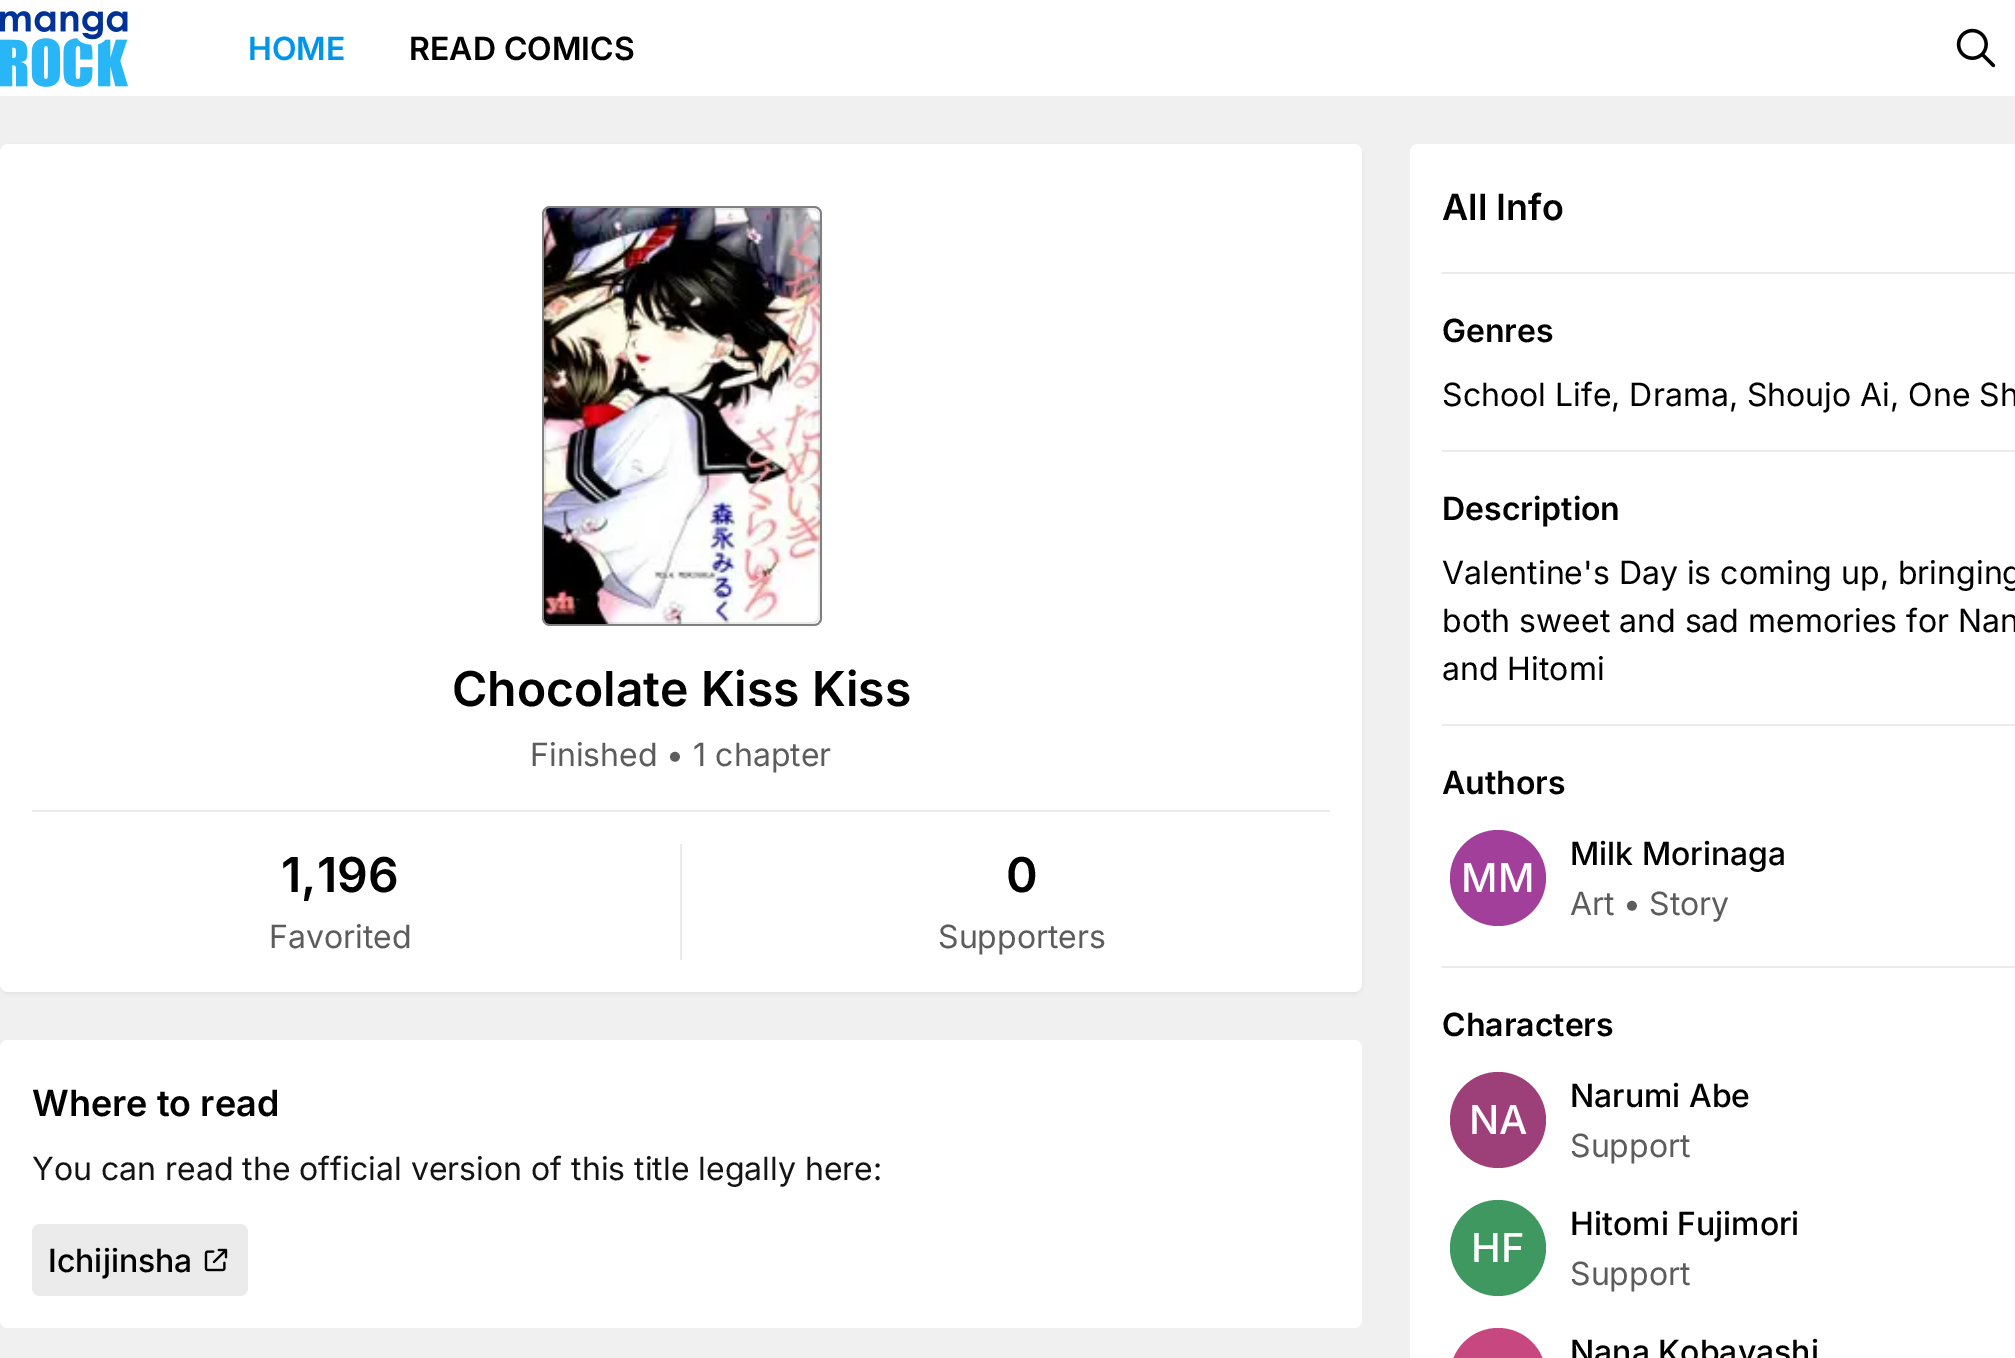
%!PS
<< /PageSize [2015 1358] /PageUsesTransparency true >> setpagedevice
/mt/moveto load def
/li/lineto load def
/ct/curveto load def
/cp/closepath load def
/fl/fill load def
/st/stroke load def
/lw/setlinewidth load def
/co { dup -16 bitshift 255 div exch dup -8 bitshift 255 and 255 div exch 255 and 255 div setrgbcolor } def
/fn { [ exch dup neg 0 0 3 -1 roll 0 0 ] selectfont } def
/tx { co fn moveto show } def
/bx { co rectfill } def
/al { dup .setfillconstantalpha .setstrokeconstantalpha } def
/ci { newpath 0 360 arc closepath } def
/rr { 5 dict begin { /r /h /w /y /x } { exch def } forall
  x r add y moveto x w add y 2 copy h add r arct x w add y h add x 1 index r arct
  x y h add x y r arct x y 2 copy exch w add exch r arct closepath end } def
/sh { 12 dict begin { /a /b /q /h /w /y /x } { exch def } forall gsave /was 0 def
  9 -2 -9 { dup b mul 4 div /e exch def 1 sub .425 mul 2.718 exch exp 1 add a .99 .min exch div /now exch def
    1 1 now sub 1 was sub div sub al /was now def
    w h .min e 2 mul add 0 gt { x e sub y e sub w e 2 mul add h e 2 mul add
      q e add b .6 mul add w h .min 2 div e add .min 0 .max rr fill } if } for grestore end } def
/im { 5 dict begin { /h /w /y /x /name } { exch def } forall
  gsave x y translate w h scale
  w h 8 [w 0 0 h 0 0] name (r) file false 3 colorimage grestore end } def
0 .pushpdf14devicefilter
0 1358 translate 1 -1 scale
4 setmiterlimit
0 0 2015 1358 16#FFFFFF bx
(media/1.raw) 0 11 128 76 im
(media/2.raw) 1956 28 40 40 im
0 96 2015 1262 16#F0F0F0 bx
16#000000 co
0 146 1362 848 8 2 .05 sh
16#FFFFFF co
0 144 1362 848 8 rr fl
16#8C8C8C co
542 206 280 420 8 rr fl
0.08 al
16#000000 co
2 lw
543 207 278 418 7 rr st
1 al
(media/3.raw) 544 208 276 416 im
0.08 al
545 209 274 414 7 rr st
1 al
32 810 1298 2 16#EBEBEB bx
680 844 2 116 16#EBEBEB bx
16#FFFFFF co
1418 144 mt 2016 144 li 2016 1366 li 1418 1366 li 1413.5 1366 1410 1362.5 1410 1358 ct 1410 152 li 1410 147.5 1413.5 144 1418 144 ct cp fl
1442 272 573 2 16#EBEBEB bx
1442 450 573 2 16#EBEBEB bx
1442 724 573 2 16#EBEBEB bx
16#A23F9B co
1498 878 48 ci fl
1442 966 573 2 16#EBEBEB bx
16#9D3F79 co
1498 1120 48 ci fl
16#3E985F co
1498 1248 48 ci fl
16#C74881 co
1450 1328 96 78 48 rr fl
16#FFFFFF co
0 1040 1362 288 8 rr fl
16#EBEBEB co
32 1224 216 72 8 rr fl
(media/4.raw) 204 1248 24 24 im
(HOME) 248 60 /Inter-SemiBold 32 16#0095E9 tx
(READ COMICS) 409 60 /Inter-SemiBold 32 16#000000 tx
(Chocolate Kiss Kiss) 452 706 /Inter-SemiBold 48 16#000000 tx
(Finished • 1 chapter) 530 766 /Inter-Regular 32 16#5C5C5C tx
(1,196) 281 892 /Inter-SemiBold 48 16#000000 tx
(Favorited) 269 948 /Inter-Regular 32 16#5C5C5C tx
(0) 1006 892 /Inter-SemiBold 48 16#000000 tx
(Supporters) 938 948 /Inter-Regular 32 16#5C5C5C tx
(All Info) 1442 220 /Inter-SemiBold 36 16#000000 tx
(Genres) 1442 342 /Inter-SemiBold 32 16#000000 tx
(School Life, Drama, Shoujo Ai, One Sh) 1442 406 /Inter-Regular 32 16#000000 tx
(Description) 1442 520 /Inter-SemiBold 32 16#000000 tx
(Valentine's Day is coming up, bringing) 1442 584 /Inter-Regular 32 16#000000 tx
(both sweet and sad memories for Nan) 1442 632 /Inter-Regular 32 16#000000 tx
(and Hitomi) 1442 680 /Inter-Regular 32 16#000000 tx
(Authors) 1442 794 /Inter-SemiBold 32 16#000000 tx
(MM) 1461 892 /Inter-Medium 40 16#FFFFFF tx
(Milk Morinaga) 1570 865 /Inter-Medium 32 16#000000 tx
(Art) 1570 915 /Inter-Regular 32 16#5C5C5C tx
(•) 1623 915 /Inter-Regular 32 16#5C5C5C tx
(Story) 1649 915 /Inter-Regular 32 16#5C5C5C tx
(Characters) 1442 1036 /Inter-SemiBold 32 16#000000 tx
(NA) 1469 1134 /Inter-Medium 40 16#FFFFFF tx
(Narumi Abe) 1570 1107 /Inter-Medium 32 16#000000 tx
(Support) 1570 1157 /Inter-Regular 32 16#5C5C5C tx
(HF) 1471 1262 /Inter-Medium 40 16#FFFFFF tx
(Hitomi Fujimori) 1570 1235 /Inter-Medium 32 16#000000 tx
(Support) 1570 1285 /Inter-Regular 32 16#5C5C5C tx
(Nana Kobayashi) 1570 1363 /Inter-Medium 32 16#000000 tx
(Where to read) 32 1116 /Inter-SemiBold 36 16#000000 tx
(You can read the official version of this title legally here:) 32 1180 /Inter-Regular 32 16#141414 tx
(Ichijinsha) 48 1272 /Inter-Medium 32 16#000000 tx
.poppdf14devicefilter showpage
